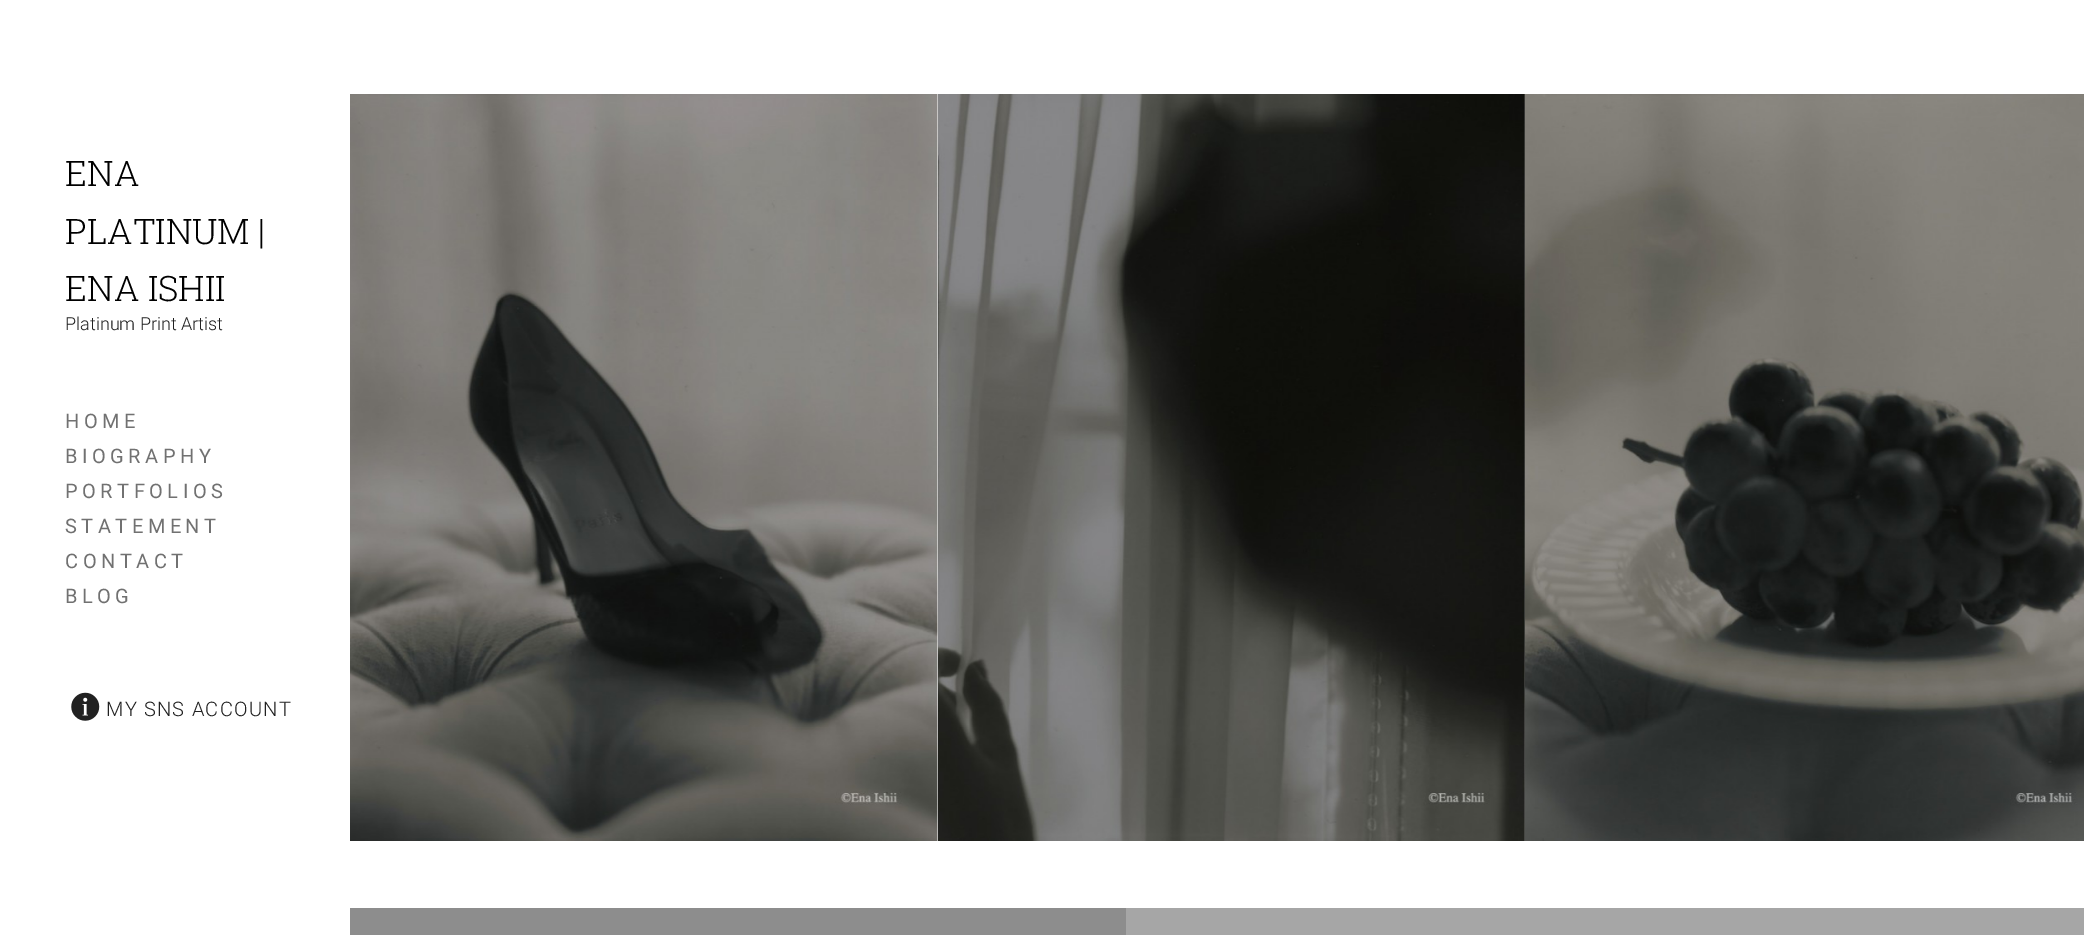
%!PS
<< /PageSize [2084 935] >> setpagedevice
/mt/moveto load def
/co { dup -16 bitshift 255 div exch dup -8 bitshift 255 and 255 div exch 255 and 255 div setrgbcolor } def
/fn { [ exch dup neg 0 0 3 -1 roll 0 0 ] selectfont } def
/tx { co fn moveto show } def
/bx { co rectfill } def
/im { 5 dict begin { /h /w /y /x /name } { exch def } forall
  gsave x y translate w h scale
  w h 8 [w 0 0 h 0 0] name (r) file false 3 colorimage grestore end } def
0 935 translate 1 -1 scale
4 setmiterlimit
0 0 2084 935 16#FFFFFF bx
(media/1.raw) 71 692 29 29 im
(media/2.raw) 350 94 588 747 im
(media/3.raw) 938 94 587 747 im
(media/4.raw) 1525 94 559 747 im
1126 908 958 27 16#A6A6A6 bx
350 908 776 27 16#8D8D8D bx
(ENA) 65 186 /RobotoSlab-Light 35 16#000000 tx
(PLATINUM |) 65 244 /RobotoSlab-Light 35 16#000000 tx
(ENA ISHII) 65 301 /RobotoSlab-Light 35 16#000000 tx
(Platinum Print Artist) 65 330 /Roboto-Light 18 16#212121 tx
/Roboto-Regular 20 fn
16#717171 co
65 428 mt 4.5 0 (HOME) ashow
65 463 mt 4.5 0 (BIOGRAPHY) ashow
65 498 mt 4.5 0 (PORTFOLIOS) ashow
65 533 mt 4.5 0 (STATEMENT) ashow
65 568 mt 4.5 0 (CONTACT) ashow
65 603 mt 4.5 0 (BLOG) ashow
/Roboto-Light 20 fn
16#212121 co
106 716 mt 1.25 0 (MY SNS ACCOUNT) ashow
showpage
